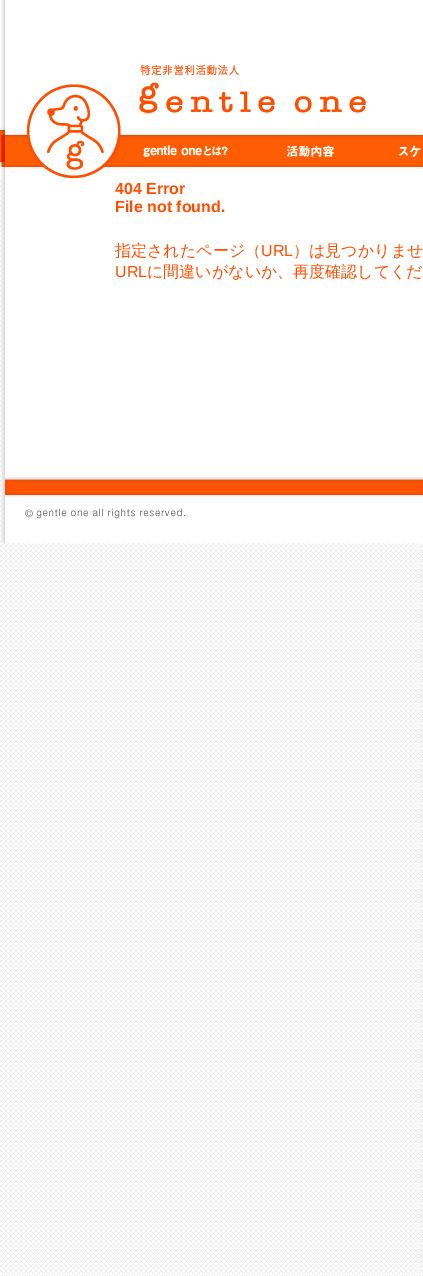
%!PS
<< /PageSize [423 1276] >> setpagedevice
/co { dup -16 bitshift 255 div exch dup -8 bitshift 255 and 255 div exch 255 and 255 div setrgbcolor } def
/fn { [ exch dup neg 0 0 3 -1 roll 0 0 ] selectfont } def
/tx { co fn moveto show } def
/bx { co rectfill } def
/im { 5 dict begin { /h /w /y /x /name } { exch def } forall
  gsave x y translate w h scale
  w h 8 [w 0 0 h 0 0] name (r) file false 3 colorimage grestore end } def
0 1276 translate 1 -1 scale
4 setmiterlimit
0 0 423 1276 16#FFFFFF bx
(media/1.raw) 0 180 423 1096 im
(media/2.raw) 0 180 423 363 im
(media/3.raw) 0 0 423 180 im
(media/4.raw) 5 477 418 20 im
(media/5.raw) 25 508 160 11 im
(404 Error) 115 194 /LiberationSans-Bold 16 16#FF4D00 tx
(File not found.) 115 212 /LiberationSans-Bold 16 16#FF4D00 tx
(指定されたページ（) 115 256 /WenQuanYiZenHei-Medium 16 16#FF4D00 tx
(URL) 261 256 /LiberationSans-Regular 16 16#FF4D00 tx
(）は見つかりませ) 293 256 /WenQuanYiZenHei-Medium 16 16#FF4D00 tx
(URL) 115 277 /LiberationSans-Regular 16 16#FF4D00 tx
(に間違いがないか、再度確認してくだ) 147 277 /WenQuanYiZenHei-Medium 16 16#FF4D00 tx
showpage
